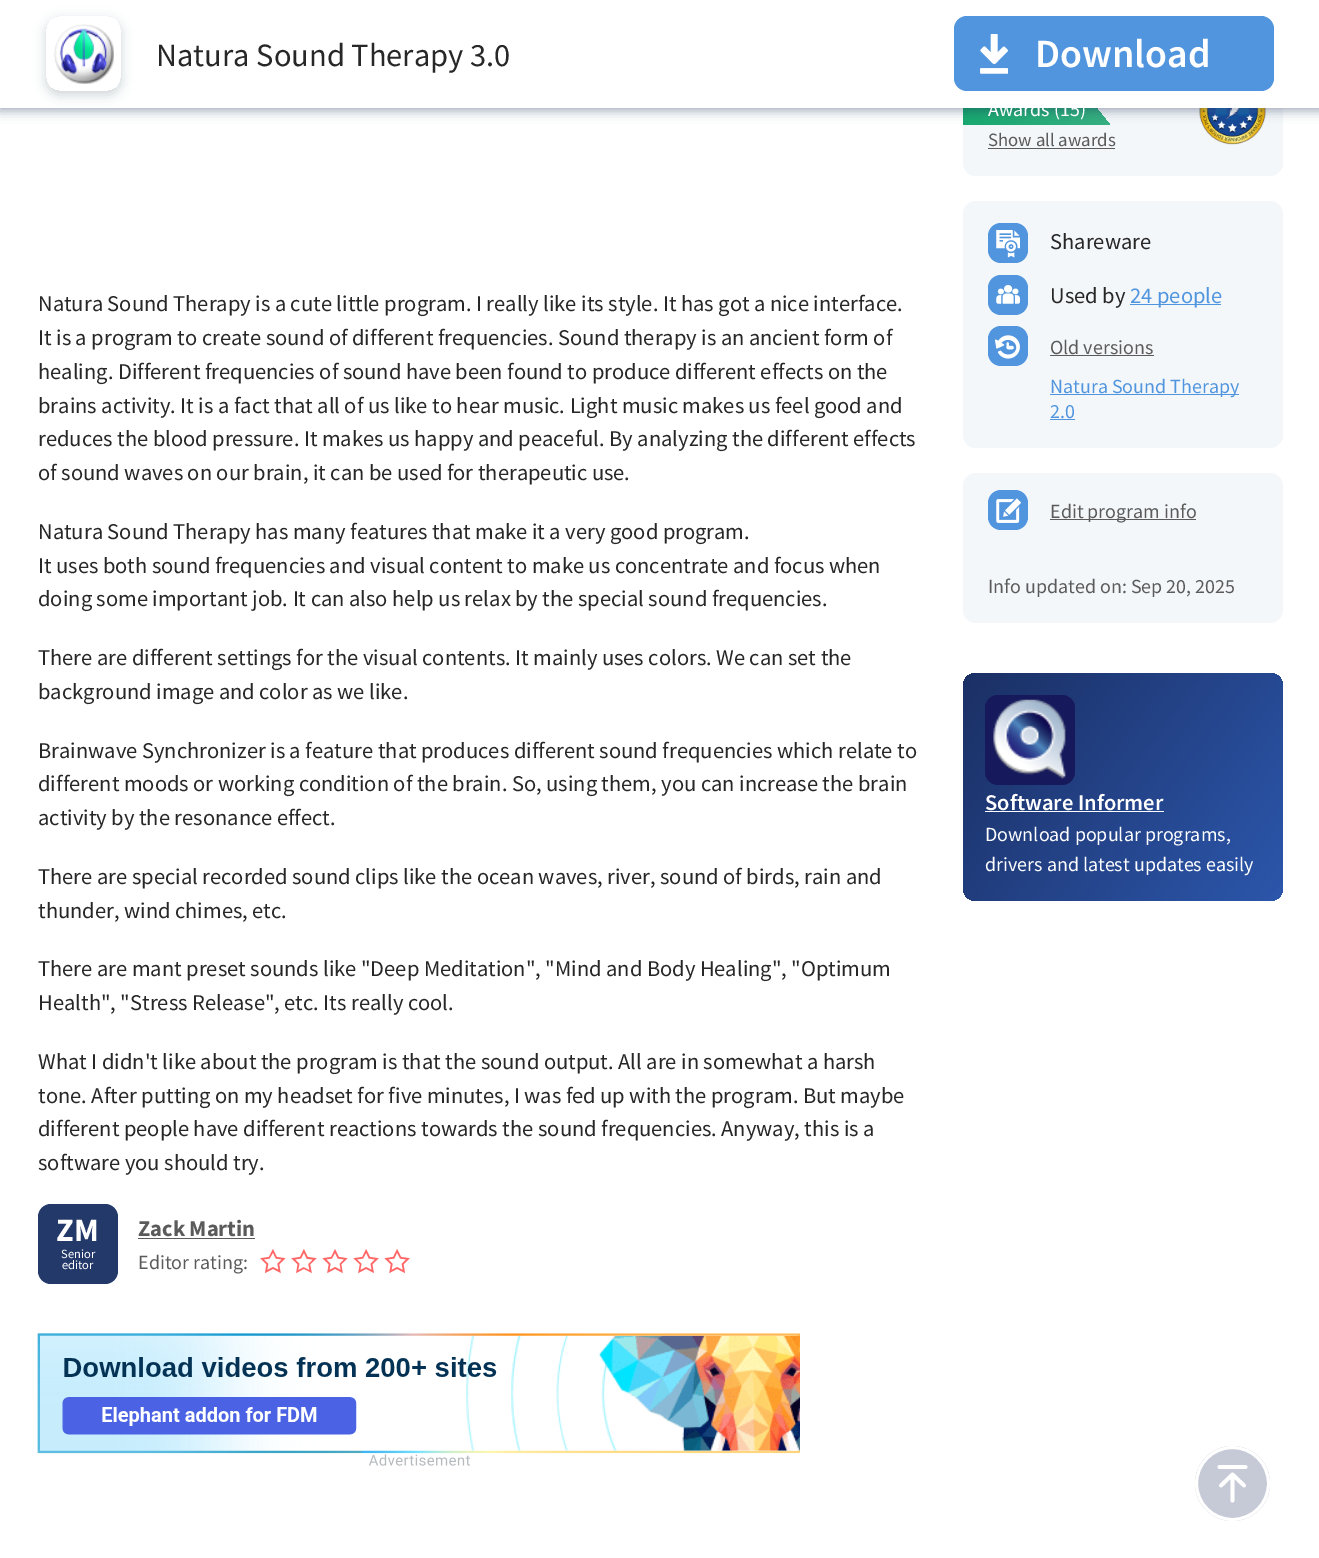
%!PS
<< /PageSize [1319 1558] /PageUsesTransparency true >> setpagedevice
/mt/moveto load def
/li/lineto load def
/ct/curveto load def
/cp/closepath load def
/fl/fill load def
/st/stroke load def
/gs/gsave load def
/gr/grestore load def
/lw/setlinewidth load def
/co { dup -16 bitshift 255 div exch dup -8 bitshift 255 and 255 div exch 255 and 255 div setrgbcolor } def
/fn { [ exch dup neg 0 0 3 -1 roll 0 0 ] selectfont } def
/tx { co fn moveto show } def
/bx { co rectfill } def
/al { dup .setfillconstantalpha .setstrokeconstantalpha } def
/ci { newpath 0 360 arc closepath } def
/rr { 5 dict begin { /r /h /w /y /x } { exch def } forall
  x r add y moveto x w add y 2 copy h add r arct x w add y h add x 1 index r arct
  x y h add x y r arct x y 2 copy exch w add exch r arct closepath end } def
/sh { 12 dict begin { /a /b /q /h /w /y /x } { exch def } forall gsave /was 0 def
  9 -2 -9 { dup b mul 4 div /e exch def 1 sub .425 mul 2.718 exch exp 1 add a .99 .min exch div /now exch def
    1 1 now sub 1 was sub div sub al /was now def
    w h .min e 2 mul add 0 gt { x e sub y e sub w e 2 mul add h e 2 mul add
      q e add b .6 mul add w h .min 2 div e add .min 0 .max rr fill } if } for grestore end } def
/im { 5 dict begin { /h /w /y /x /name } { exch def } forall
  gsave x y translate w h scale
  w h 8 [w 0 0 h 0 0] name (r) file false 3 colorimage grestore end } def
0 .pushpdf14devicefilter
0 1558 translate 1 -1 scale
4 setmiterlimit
0 0 1319 1558 16#FFFFFF bx
16#F4F7FA co
963 60 320 116 13 rr fl
gs
963 94 147 31 rectclip
gs 1110 125 mt 937 125 li 937 94 li 1110 94 li 1097 109 li cp clip newpath
<< /ShadingType 2 /ColorSpace /DeviceRGB /Coords [937 109 1110 109] /Extend [true true] /Function << /FunctionType 2 /Domain [0 1] /C0 [.075 .659 .42] /C1 [.212 .69 .51] /N 1 >> >> shfill gr
gr
(media/4.raw) 1199 108 67 37 im
16#1B2B54 co
-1 1 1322 110 0 5.5 .39 sh
0 0 1319 108 16#FFFFFF bx
gs
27 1 mt 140 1 li 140 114 li 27 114 li cp 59 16 mt 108 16 li 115 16 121 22 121 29 ct 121 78 li 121 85 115 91 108 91 ct 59 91 li 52 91 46 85 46 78 ct 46 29 li 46 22 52 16 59 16 ct cp eoclip newpath
16#3C484E co
46 20 75 75 13 6 .24 sh
gr
(media/1.raw) 53 24 61 60 im
16#5195DE co
954 16 320 75 13 rr fl
(media/2.raw) 980 34 28 40 im
16#23396A co
38 1204 80 80 13 rr fl
138 1238 117 1 16#5B5B5B bx
(media/3.raw) 260 1249 150 25 im
988 148 127 1 16#5B5B5B bx
16#F4F7FA co
963 201 320 247 13 rr fl
16#5195DE co
988 223 40 40 13 rr fl
(media/5.raw) 996 230 24 28 im
988 275 40 40 13 rr fl
(media/6.raw) 996 285 24 19 im
1130 304 91 1 16#5195DE bx
988 326 40 40 13 rr fl
(media/7.raw) 995 335 25 24 im
1050 355 104 1 16#5B5B5B bx
1050 394 189 1 16#5195DE bx
1050 419 25 1 16#5195DE bx
16#F4F7FA co
963 473 320 150 13 rr fl
16#5195DE co
988 490 40 40 13 rr fl
(media/8.raw) 996 498 25 25 im
1050 519 146 1 16#5B5B5B bx
gs 963 673 320 228 13 rr clip newpath
<< /ShadingType 2 /ColorSpace /DeviceRGB /Coords [965 669 1280 905] /Extend [true true] /Function << /FunctionType 3 /Domain [0 1] /Functions [<< /FunctionType 2 /Domain [0 1] /C0 [.106 .188 .396] /C1 [.106 .188 .396] /N 1 >> << /FunctionType 2 /Domain [0 1] /C0 [.106 .188 .396] /C1 [.173 .337 .667] /N 1 >> << /FunctionType 2 /Domain [0 1] /C0 [.173 .337 .667] /C1 [.173 .337 .667] /N 1 >>] /Bounds [.01 .98] /Encode [0 1 0 1 0 1] >> >> shfill gr
16#161A5C co
985 695 90 90 13 rr fl
(media/9.raw) 993 699 73 80 im
985 811 179 1 16#FFFFFF bx
(media/10.raw) 37 1333 763 121 im
(media/11.raw) 369 1454 101 12 im
16#C6C9D6 co
1232.5 1483.5 37.5 ci fl
16#FFFFFF co
3.8 lw
1 setlinecap
1 setlinejoin
1219.5 1467 mt 1245.5 1467 li 1244 1485.5 mt 1232.5 1474.5 li 1232.5 1474.5 mt 1221 1485.5 li 1232.5 1474.5 mt 1232.5 1500.5 li st
3 lw
0 setlinecap
0 setlinejoin
1232.5 1483.5 36 ci st
(Natura Sound Therapy 3.0) 156 66 /SourceSansPro-Regular 32.5 16#272727 tx
(Download) 1035 67 /SourceSansPro-SemiBold 40 16#FFFFFF tx
(Natura Sound Therapy is a cute little program. I really like its style. It has got a nice interface.) 38 311 /SourceSansPro-Regular 22.5 16#272727 tx
(It is a program to create sound of different frequencies. Sound therapy is an ancient form of) 38 345 /SourceSansPro-Regular 22.5 16#272727 tx
(healing. Different frequencies of sound have been found to produce different effects on the) 38 379 /SourceSansPro-Regular 22.5 16#272727 tx
(brains activity. It is a fact that all of us like to hear music. Light music makes us feel good and) 38 413 /SourceSansPro-Regular 22.5 16#272727 tx
(reduces the blood pressure. It makes us happy and peaceful. By analyzing the different effects) 38 446 /SourceSansPro-Regular 22.5 16#272727 tx
(of sound waves on our brain, it can be used for therapeutic use.) 38 480 /SourceSansPro-Regular 22.5 16#272727 tx
(Natura Sound Therapy has many features that make it a very good program.) 38 539 /SourceSansPro-Regular 22.5 16#272727 tx
(It uses both sound frequencies and visual content to make us concentrate and focus when) 38 573 /SourceSansPro-Regular 22.5 16#272727 tx
(doing some important job. It can also help us relax by the special sound frequencies.) 38 606 /SourceSansPro-Regular 22.5 16#272727 tx
(There are different settings for the visual contents. It mainly uses colors. We can set the) 38 665 /SourceSansPro-Regular 22.5 16#272727 tx
(background image and color as we like.) 38 699 /SourceSansPro-Regular 22.5 16#272727 tx
(Brainwave Synchronizer is a feature that produces different sound frequencies which relate to) 38 758 /SourceSansPro-Regular 22.5 16#272727 tx
(different moods or working condition of the brain. So, using them, you can increase the brain) 38 791 /SourceSansPro-Regular 22.5 16#272727 tx
(activity by the resonance effect.) 38 825 /SourceSansPro-Regular 22.5 16#272727 tx
(There are special recorded sound clips like the ocean waves, river, sound of birds, rain and) 38 884 /SourceSansPro-Regular 22.5 16#272727 tx
(thunder, wind chimes, etc.) 38 918 /SourceSansPro-Regular 22.5 16#272727 tx
(There are mant preset sounds like "Deep Meditation", "Mind and Body Healing", "Optimum) 38 976 /SourceSansPro-Regular 22.5 16#272727 tx
(Health", "Stress Release", etc. Its really cool.) 38 1010 /SourceSansPro-Regular 22.5 16#272727 tx
(What I didn't like about the program is that the sound output. All are in somewhat a harsh) 38 1069 /SourceSansPro-Regular 22.5 16#272727 tx
(tone. After putting on my headset for five minutes, I was fed up with the program. But maybe) 38 1103 /SourceSansPro-Regular 22.5 16#272727 tx
(different people have different reactions towards the sound frequencies. Anyway, this is a) 38 1136 /SourceSansPro-Regular 22.5 16#272727 tx
(software you should try.) 38 1170 /SourceSansPro-Regular 22.5 16#272727 tx
(ZM) 56 1241 /SourceSansPro-Bold 32.5 16#FFFFFF tx
(Senior) 61 1258 /SourceSansPro-Regular 12.5 16#FFFFFF tx
(editor) 62 1269 /SourceSansPro-Regular 12.5 16#FFFFFF tx
(Zack Martin) 138 1236 /SourceSansPro-Bold 22.5 16#5B5B5B tx
(Editor rating:) 138 1269 /SourceSansPro-Regular 20 16#5B5B5B tx
(Awards \(15\)) 988 116 /SourceSansPro-Regular 20 16#FFFFFF tx
(Show all awards) 988 146 /SourceSansPro-Regular 18.75 16#5B5B5B tx
(Shareware) 1050 249 /SourceSansPro-Regular 22.5 16#272727 tx
(Used by) 1050 303 /SourceSansPro-Regular 22.5 16#272727 tx
(24 people) 1130 303 /SourceSansPro-Regular 22.5 16#5195DE tx
(Old versions) 1050 354 /SourceSansPro-Regular 20 16#5B5B5B tx
(Natura Sound Therapy) 1050 393 /SourceSansPro-Regular 20 16#5195DE tx
(2.0) 1050 418 /SourceSansPro-Regular 20 16#5195DE tx
(Edit program info) 1050 518 /SourceSansPro-Regular 20 16#5B5B5B tx
(Info updated on: Sep 20, 2025) 988 593 /SourceSansPro-Regular 20 16#5B5B5B tx
(Software Informer) 985 810 /SourceSansPro-SemiBold 22.5 16#FFFFFF tx
(Download popular programs,) 985 841 /SourceSansPro-Regular 20 16#FFFFFF tx
(drivers and latest updates easily) 985 871 /SourceSansPro-Regular 20 16#FFFFFF tx
.poppdf14devicefilter showpage
